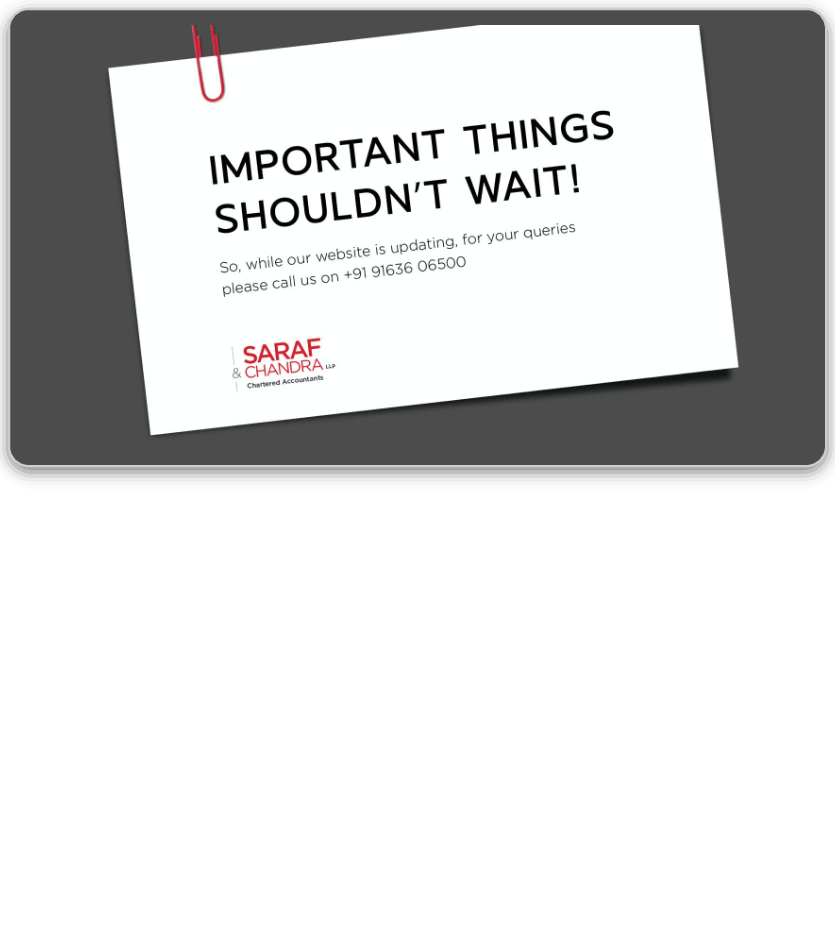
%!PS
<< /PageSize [835 931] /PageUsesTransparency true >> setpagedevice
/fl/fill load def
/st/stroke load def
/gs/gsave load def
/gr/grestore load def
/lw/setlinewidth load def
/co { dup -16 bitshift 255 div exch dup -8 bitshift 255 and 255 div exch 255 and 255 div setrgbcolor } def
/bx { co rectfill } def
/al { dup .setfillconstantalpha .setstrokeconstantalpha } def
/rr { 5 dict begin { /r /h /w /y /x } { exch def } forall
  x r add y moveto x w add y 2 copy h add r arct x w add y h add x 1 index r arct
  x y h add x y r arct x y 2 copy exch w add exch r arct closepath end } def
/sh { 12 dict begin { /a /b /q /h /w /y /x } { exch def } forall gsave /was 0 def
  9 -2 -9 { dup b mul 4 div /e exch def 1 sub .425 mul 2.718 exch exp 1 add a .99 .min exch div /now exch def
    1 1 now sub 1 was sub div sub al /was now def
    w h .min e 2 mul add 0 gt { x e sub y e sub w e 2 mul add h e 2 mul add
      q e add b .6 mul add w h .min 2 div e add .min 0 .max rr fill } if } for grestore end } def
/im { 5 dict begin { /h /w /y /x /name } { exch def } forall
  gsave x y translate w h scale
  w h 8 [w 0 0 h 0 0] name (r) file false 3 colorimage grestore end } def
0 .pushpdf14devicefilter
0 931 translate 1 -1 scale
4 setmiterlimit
0 0 835 931 16#FFFFFF bx
16#000000 co
8 13 819 459 20 7.5 .5 sh
16#4C4C4C co
9 9 817 457 19 rr gs fl gr
16#CCCCCC co
2 lw
st
(media/1.raw) 105 25 634 415 im
.poppdf14devicefilter showpage
